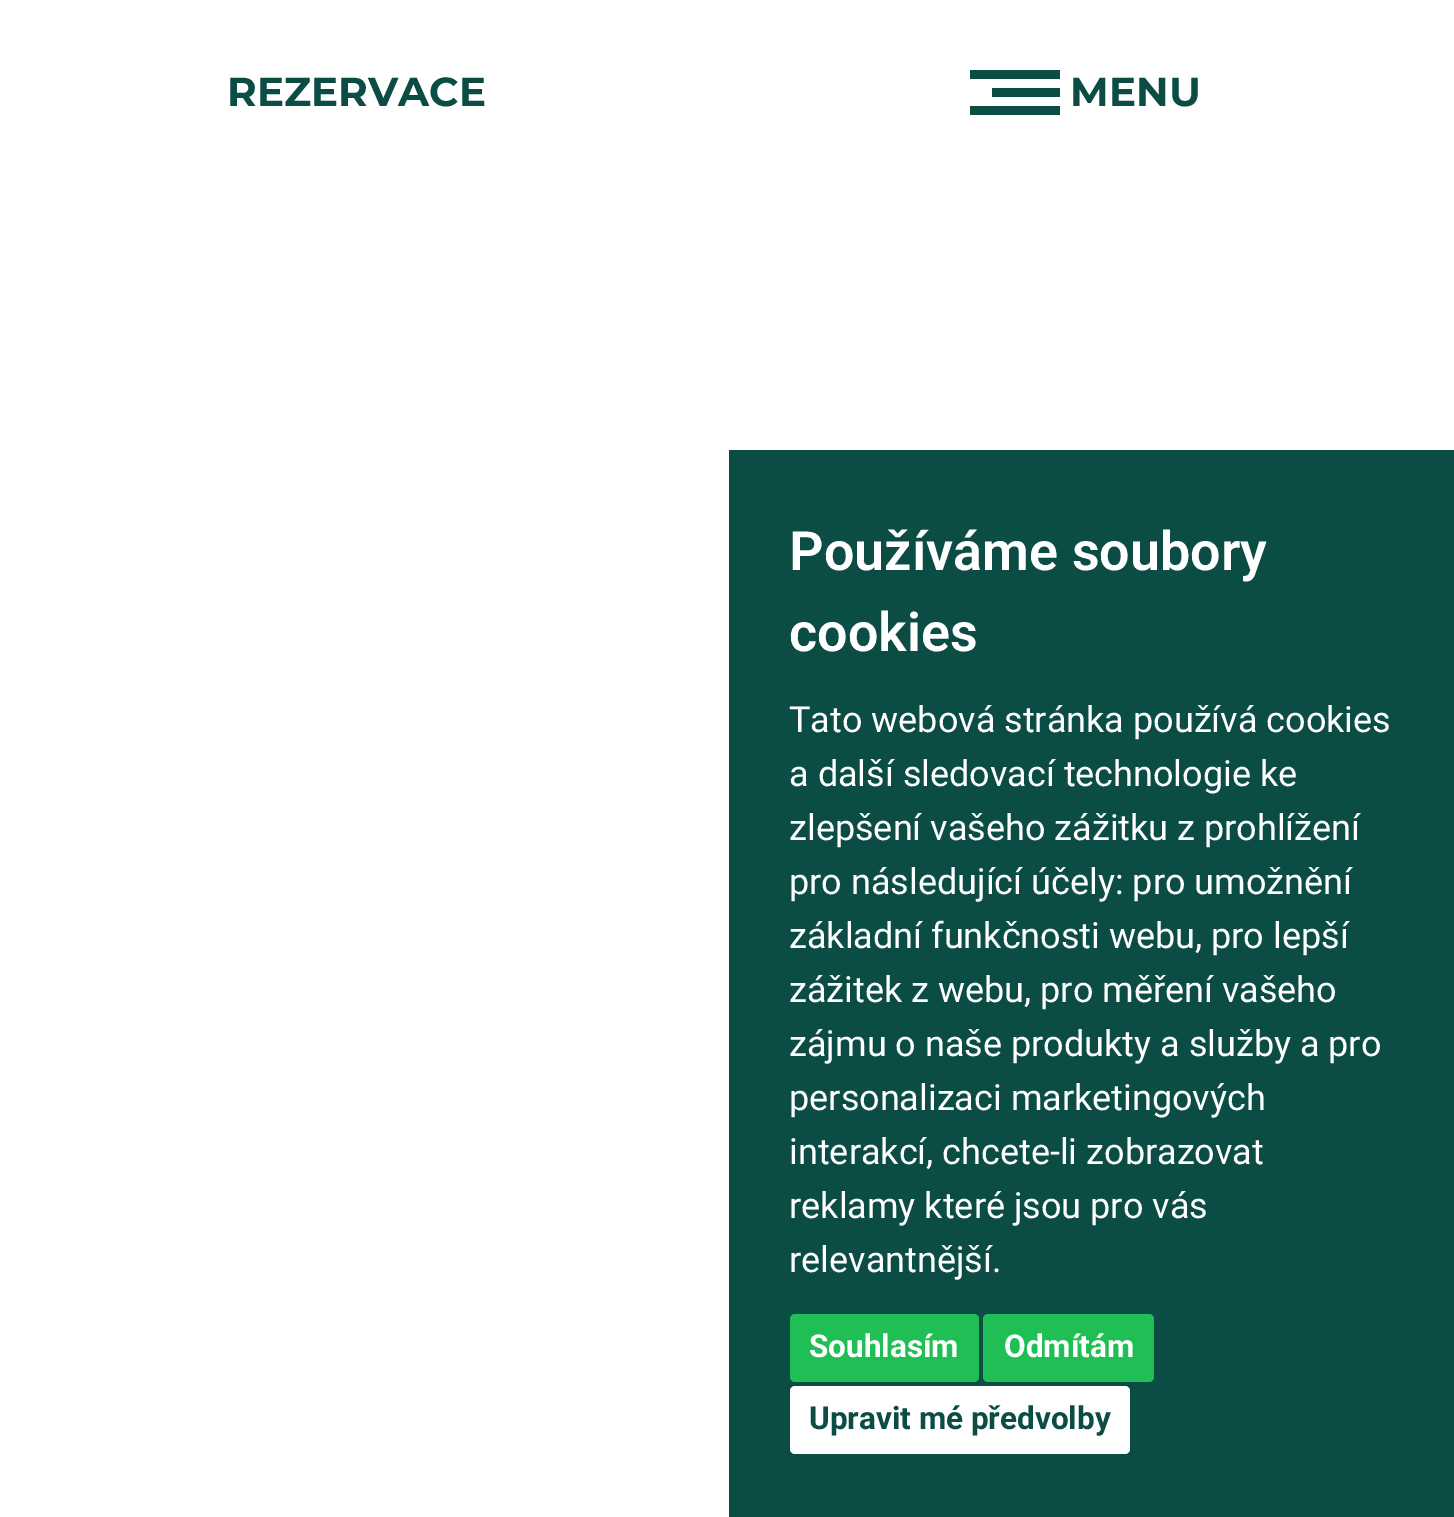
%!PS
<< /PageSize [1454 1517] >> setpagedevice
/fl/fill load def
/co { dup -16 bitshift 255 div exch dup -8 bitshift 255 and 255 div exch 255 and 255 div setrgbcolor } def
/fn { [ exch dup neg 0 0 3 -1 roll 0 0 ] selectfont } def
/tx { co fn moveto show } def
/bx { co rectfill } def
/rr { 5 dict begin { /r /h /w /y /x } { exch def } forall
  x r add y moveto x w add y 2 copy h add r arct x w add y h add x 1 index r arct
  x y h add x y r arct x y 2 copy exch w add exch r arct closepath end } def
0 1517 translate 1 -1 scale
4 setmiterlimit
0 0 1454 1517 16#FFFFFF bx
992 88 68 9 16#0B4C45 bx
970 70 90 9 16#0B4C45 bx
970 106 90 9 16#0B4C45 bx
729 450 725 1067 16#0B4C45 bx
16#20BF55 co
790 1314 189 68 5 rr fl
983 1314 171 68 5 rr fl
16#FFFFFF co
790 1386 340 68 5 rr fl
(REZERVACE) 227 106 /Montserrat-Bold 40.5 16#0B4C45 tx
(MENU) 1070 106 /Montserrat-Bold 40.5 16#0B4C45 tx
(Používáme soubory) 789 570 /Roboto-SemiBold 54 16#FFFFFF tx
(cookies) 789 651 /Roboto-SemiBold 54 16#FFFFFF tx
(Tato webová stránka používá cookies) 789 732 /Roboto-Regular 36 16#FFFFFF tx
(a další sledovací technologie ke) 789 786 /Roboto-Regular 36 16#FFFFFF tx
(zlepšení vašeho zážitku z prohlížení) 789 840 /Roboto-Regular 36 16#FFFFFF tx
(pro následující účely: pro umožnění) 789 894 /Roboto-Regular 36 16#FFFFFF tx
(základní funkčnosti webu, pro lepší) 789 948 /Roboto-Regular 36 16#FFFFFF tx
(zážitek z webu, pro měření vašeho) 789 1002 /Roboto-Regular 36 16#FFFFFF tx
(zájmu o naše produkty a služby a pro) 789 1056 /Roboto-Regular 36 16#FFFFFF tx
(personalizaci marketingových) 789 1110 /Roboto-Regular 36 16#FFFFFF tx
(interakcí, chcete-li zobrazovat) 789 1164 /Roboto-Regular 36 16#FFFFFF tx
(reklamy které jsou pro vás) 789 1218 /Roboto-Regular 36 16#FFFFFF tx
(relevantnější.) 789 1272 /Roboto-Regular 36 16#FFFFFF tx
(Souhlasím) 809 1357 /Roboto-Bold 31.5 16#FFFFFF tx
(Odmítám) 1004 1357 /Roboto-Bold 31.5 16#FFFFFF tx
(Upravit mé předvolby) 809 1429 /Roboto-Bold 31.5 16#0B4C45 tx
showpage
